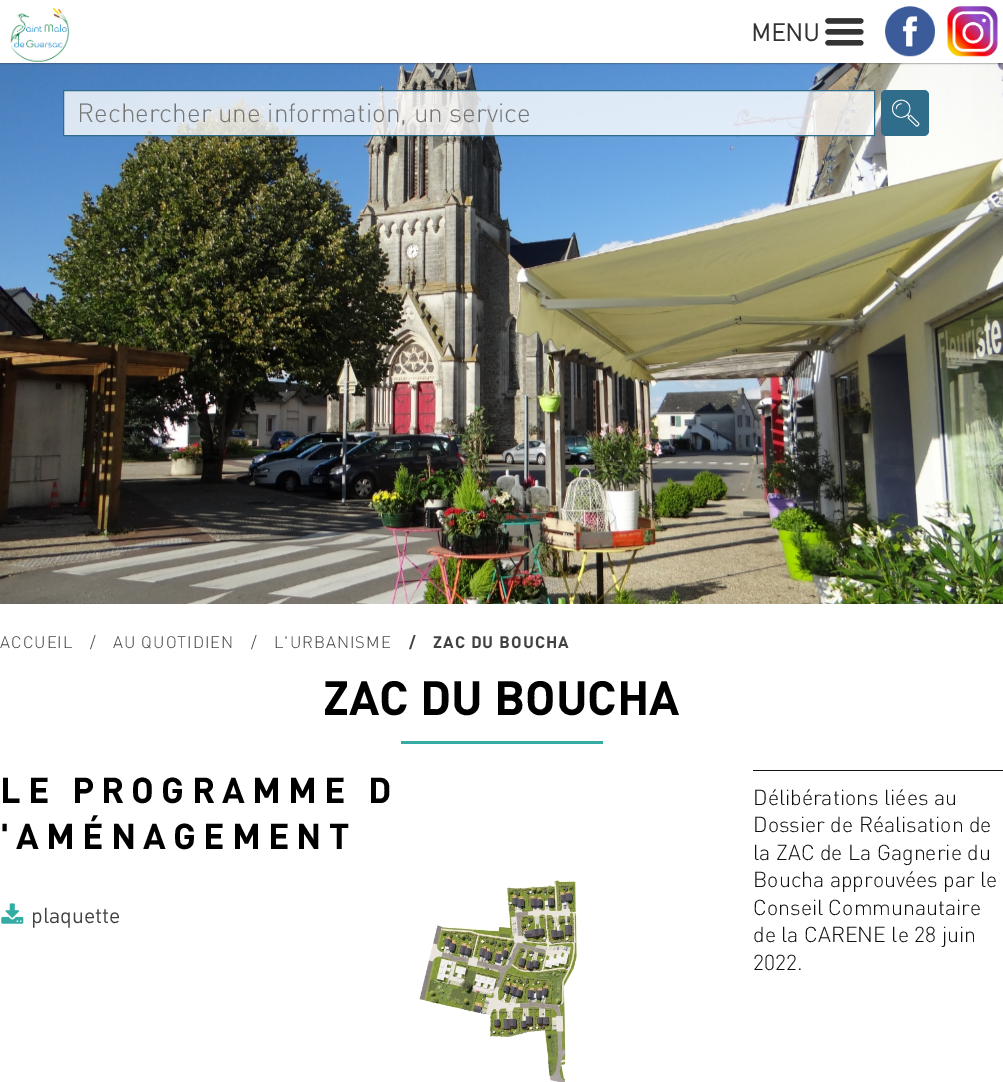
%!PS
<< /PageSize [1003 1082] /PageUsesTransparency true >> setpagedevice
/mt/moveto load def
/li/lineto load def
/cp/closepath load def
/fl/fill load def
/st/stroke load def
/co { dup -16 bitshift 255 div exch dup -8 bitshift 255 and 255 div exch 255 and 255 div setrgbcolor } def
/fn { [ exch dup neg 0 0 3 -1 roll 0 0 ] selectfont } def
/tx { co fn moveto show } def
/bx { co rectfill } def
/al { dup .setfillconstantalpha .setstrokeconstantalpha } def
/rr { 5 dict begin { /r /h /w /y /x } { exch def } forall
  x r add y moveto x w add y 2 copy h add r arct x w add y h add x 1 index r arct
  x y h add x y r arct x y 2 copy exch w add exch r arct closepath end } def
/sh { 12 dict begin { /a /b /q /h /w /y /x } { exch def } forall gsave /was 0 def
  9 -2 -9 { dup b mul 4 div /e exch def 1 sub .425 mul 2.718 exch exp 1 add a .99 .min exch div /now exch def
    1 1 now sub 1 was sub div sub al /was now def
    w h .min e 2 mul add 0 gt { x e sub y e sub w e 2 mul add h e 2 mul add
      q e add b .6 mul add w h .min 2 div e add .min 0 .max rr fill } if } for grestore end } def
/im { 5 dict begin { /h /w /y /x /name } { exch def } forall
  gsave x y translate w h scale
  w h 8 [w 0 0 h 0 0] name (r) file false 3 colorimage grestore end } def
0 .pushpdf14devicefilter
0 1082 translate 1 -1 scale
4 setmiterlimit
0 0 1003 1082 16#FFFFFF bx
(media/5.raw) 0 63 1003 541 im
16#333333 co
0 0 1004 63 0 1 1 sh
0 0 1003 63 16#FFFFFF bx
(media/1.raw) 10 7 60 56 im
(media/2.raw) 825 18 39 28 im
(media/3.raw) 885 6 50 51 im
(media/4.raw) 947 6 51 51 im
0.8 al
63.5 90.5 mt 874.5 90.5 li 874.5 135.5 li 63.5 135.5 li cp fl
1 al
16#2F6D8B co
63.5 90.5 mt 874.5 90.5 li 874.5 135.5 li 63.5 135.5 li cp st
881 90 48 46 5 rr fl
(media/6.raw) 892 99 28 28 im
401 741 202 3 16#34ACA3 bx
(media/7.raw) 1 903 23 21 im
(media/8.raw) 419 880 159 202 im
753 770 250 1 16#111111 bx
(MENU) 751 41 /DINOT-Bold 24 16#333333 tx
(Rechercher une information, un service) 77 122 /DINOT-Light 26.1 16#757575 tx
/DINOT-Light 16.5 fn
16#414141 co
0 648 mt 1 0 (ACCUEIL) ashow
90 648 mt 1 0 (/) ashow
113 648 mt 1 0 (AU QUOTIDIEN) ashow
251 648 mt 1 0 (/) ashow
274 648 mt 1 0 (L'URBANISME) ashow
/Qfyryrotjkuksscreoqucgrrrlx-Bold 16.5 fn
409 648 mt 1 0 (/) ashow
433 648 mt 1 0 (ZAC DU BOUCHA) ashow
(ZAC DU BOUCHA) 323 715 /Qfyryrotjkuksscreoqucgrrrlx-Bold 47.5 16#000000 tx
/Qfyryrotjkuksscreoqucgrrrlx-Bold 35.6 fn
0 803 mt 7.1 0 (LE PROGRAMME D) ashow
0 849 mt 7.1 0 ('AMÉNAGEMENT) ashow
(plaquette) 31 923 /DINOT-Regular 21.4 16#414141 tx
(Délibérations liées au) 753 805 /DINOT-Light 21.4 16#111111 tx
(Dossier de Réalisation de) 753 832 /DINOT-Light 21.4 16#111111 tx
(la ZAC de La Gagnerie du) 753 860 /DINOT-Light 21.4 16#111111 tx
(Boucha approuvées par le) 753 887 /DINOT-Light 21.4 16#111111 tx
(Conseil Communautaire) 753 915 /DINOT-Light 21.4 16#111111 tx
(de la CARENE le 28 juin) 753 942 /DINOT-Light 21.4 16#111111 tx
(2022.) 753 970 /DINOT-Light 21.4 16#111111 tx
.poppdf14devicefilter showpage
